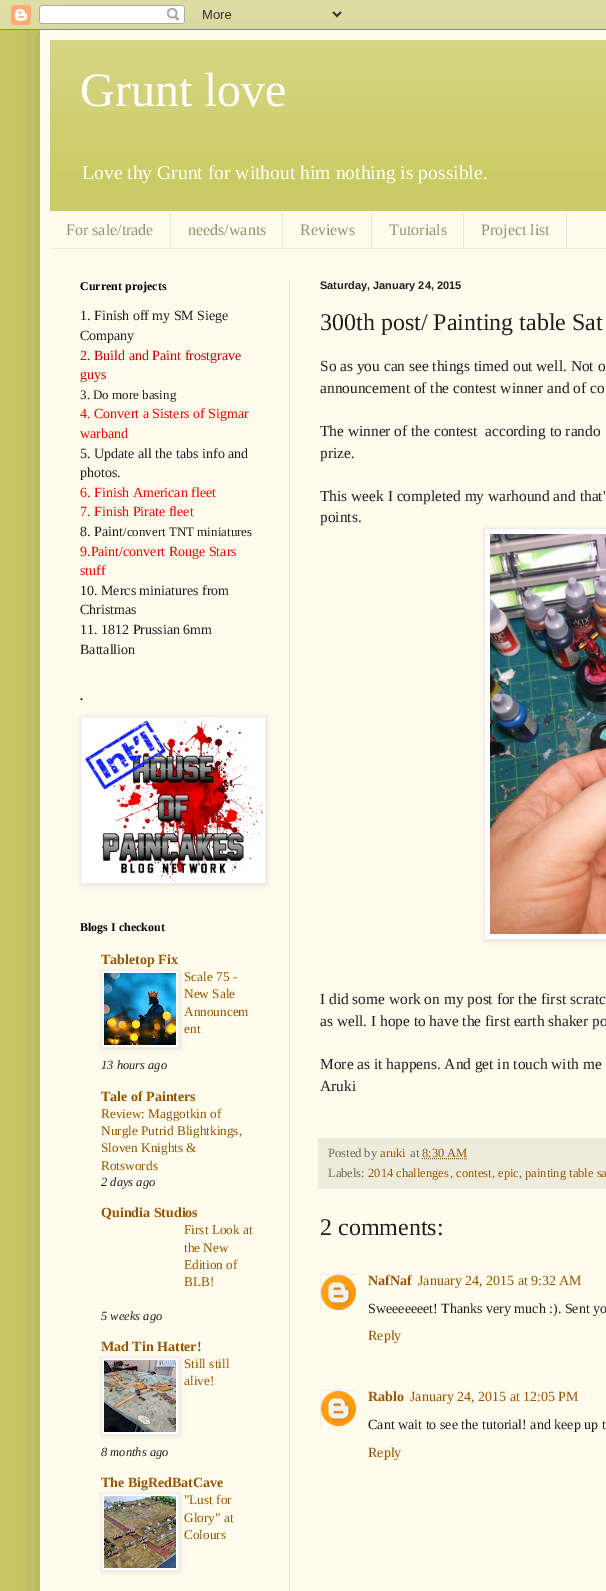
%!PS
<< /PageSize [606 1591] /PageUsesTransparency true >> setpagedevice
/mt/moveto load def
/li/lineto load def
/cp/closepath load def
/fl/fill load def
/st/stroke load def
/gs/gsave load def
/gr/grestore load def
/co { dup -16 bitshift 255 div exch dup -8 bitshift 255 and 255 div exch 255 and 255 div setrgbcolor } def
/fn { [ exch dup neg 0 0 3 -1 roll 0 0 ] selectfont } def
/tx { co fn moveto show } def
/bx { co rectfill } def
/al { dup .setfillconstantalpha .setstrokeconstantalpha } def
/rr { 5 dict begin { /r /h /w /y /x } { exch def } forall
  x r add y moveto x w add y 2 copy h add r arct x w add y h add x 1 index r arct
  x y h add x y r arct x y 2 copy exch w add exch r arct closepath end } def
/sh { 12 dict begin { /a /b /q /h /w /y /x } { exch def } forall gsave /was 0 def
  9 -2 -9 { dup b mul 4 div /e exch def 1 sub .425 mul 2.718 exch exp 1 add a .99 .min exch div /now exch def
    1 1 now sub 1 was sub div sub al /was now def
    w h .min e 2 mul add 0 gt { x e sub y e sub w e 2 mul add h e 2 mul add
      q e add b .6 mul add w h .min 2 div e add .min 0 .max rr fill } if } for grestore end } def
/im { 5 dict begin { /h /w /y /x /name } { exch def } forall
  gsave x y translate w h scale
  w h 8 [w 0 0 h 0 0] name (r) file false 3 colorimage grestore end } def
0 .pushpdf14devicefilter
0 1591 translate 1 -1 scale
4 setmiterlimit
0 0 606 1591 16#C9C967 bx
16#000000 co
40 30 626 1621 0 20 .15 sh
(media/1.raw) 0 0 606 30 im
40 30 566 1561 16#FFFCED bx
50 40 556 171 16#CBCB65 bx
(media/2.raw) 50 40 556 130 im
50 248 556 1 16#EDE8DC bx
170 211 1 37 16#EDE8DC bx
282 211 1 37 16#EDE8DC bx
371 211 1 37 16#EDE8DC bx
463 211 1 37 16#EDE8DC bx
566 211 1 37 16#EDE8DC bx
289 279 1 1312 16#EDE8DC bx
16#000000 co
81 717 186 168 0 2.5 .1 sh
16#FFFFFF co
80.5 716.5 mt 265.5 716.5 li 265.5 883.5 li 80.5 883.5 li cp gs fl gr
16#EDEDED co
st
(media/3.raw) 85 719 178 162 im
16#000000 co
102 971 78 78 0 2.5 .1 sh
16#FFFFFF co
101.5 970.5 mt 178.5 970.5 li 178.5 1047.5 li 101.5 1047.5 li cp gs fl gr
16#EDEDED co
st
(media/4.raw) 104 973 72 72 im
16#000000 co
102 1358 78 78 0 2.5 .1 sh
16#FFFFFF co
101.5 1357.5 mt 178.5 1357.5 li 178.5 1434.5 li 101.5 1434.5 li cp gs fl gr
16#EDEDED co
st
(media/5.raw) 104 1360 72 72 im
16#000000 co
102 1494 78 78 0 2.5 .1 sh
16#FFFFFF co
101.5 1493.5 mt 178.5 1493.5 li 178.5 1570.5 li 101.5 1570.5 li cp gs fl gr
16#EDEDED co
st
(media/6.raw) 104 1496 72 72 im
16#000000 co
485 529 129 412 0 2.5 .1 sh
16#FFFFFF co
484.5 528.5 mt 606.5 528.5 li 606.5 939.5 li 484.5 939.5 li cp gs fl gr
16#EDEDED co
st
(media/7.raw) 490 534 116 400 im
318 1138 288 50 16#EDECDC bx
318 1188 288 1 16#EDEDED bx
16#985300 co
[1 1] 0 setdash
422 1158.5 mt 467 1158.5 li st
gs
320 1274 36 36 rectclip
16#EDEDED co
[] 0 setdash
320.5 1274.5 36 36 rectstroke
gr
(media/8.raw) 321 1275 35 35 im
gs
320 1390 36 36 rectclip
16#EDEDED co
[] 0 setdash
320.5 1390.5 36 36 rectstroke
gr
(media/8.raw) 321 1391 35 35 im
(Grunt love) 80 106 /LiberationSerif-Regular 48 16#FFFFFF tx
(Love thy Grunt for without him nothing is possible.) 82 179 /LiberationSerif-Regular 19.6 16#FFFFFF tx
(For sale/trade) 66 235 /LiberationSerif-Regular 16 16#988F76 tx
(needs/wants) 188 235 /LiberationSerif-Regular 16 16#988F76 tx
(Reviews) 300 235 /LiberationSerif-Regular 16 16#988F76 tx
(Tutorials) 389 235 /LiberationSerif-Regular 16 16#988F76 tx
(Project list) 481 235 /LiberationSerif-Regular 16 16#988F76 tx
(Current projects) 80 290 /LiberationSerif-Bold 12 16#000000 tx
(1. Finish off my SM Siege) 80 320 /LiberationSerif-Regular 14 16#1F1F1F tx
(Company) 80 340 /LiberationSerif-Regular 14 16#1F1F1F tx
(2. Build and Paint frostgrave) 80 360 /LiberationSerif-Regular 14 16#CC0000 tx
(guys) 80 379 /LiberationSerif-Regular 14 16#CC0000 tx
(3. Do more basing) 80 399 /LiberationSerif-Regular 13 16#1F1F1F tx
(4. Convert a Sisters of Sigmar) 80 418 /LiberationSerif-Regular 14 16#FF0000 tx
(warband) 80 438 /LiberationSerif-Regular 14 16#FF0000 tx
(5. Update all the tabs info and) 80 458 /LiberationSerif-Regular 14 16#1F1F1F tx
(photos.) 80 477 /LiberationSerif-Regular 14 16#1F1F1F tx
(6. Finish American fleet) 80 497 /LiberationSerif-Regular 14 16#FF0000 tx
(7. Finish Pirate fleet) 80 516 /LiberationSerif-Regular 14 16#FF0000 tx
(8. Paint) 80 536 /LiberationSerif-Regular 14 16#1F1F1F tx
(/convert TNT miniatures) 123 536 /LiberationSerif-Regular 13 16#1F1F1F tx
(9.Paint/convert Rouge Stars) 80 556 /LiberationSerif-Regular 14 16#FF0000 tx
(stuff) 80 575 /LiberationSerif-Regular 14 16#FF0000 tx
(10. Mercs miniatures from) 80 595 /LiberationSerif-Regular 14 16#1F1F1F tx
(Christmas) 80 614 /LiberationSerif-Regular 14 16#1F1F1F tx
(11. 1812 Prussian 6mm) 80 634 /LiberationSerif-Regular 14 16#1F1F1F tx
(Battallion) 80 654 /LiberationSerif-Regular 14 16#1F1F1F tx
(.) 80 700 /LiberationSerif-Bold 12 16#000000 tx
(Blogs I checkout) 80 931 /LiberationSerif-Bold 12 16#000000 tx
(Tabletop Fix) 101 964 /LiberationSerif-Bold 14 16#985300 tx
(Scale 75 -) 184 981 /LiberationSerif-Regular 13.25 16#985300 tx
(New Sale) 184 998 /LiberationSerif-Regular 13.25 16#985300 tx
(Announcem) 184 1016 /LiberationSerif-Regular 13.25 16#985300 tx
(ent) 184 1033 /LiberationSerif-Regular 13.25 16#985300 tx
(13 hours ago) 101 1069 /LiberationSerif-Italic 12.5 16#1F1F1F tx
(Tale of Painters) 101 1101 /LiberationSerif-Bold 14 16#985300 tx
(Review: Maggotkin of) 101 1118 /LiberationSerif-Regular 13.25 16#985300 tx
(Nurgle Putrid Blightkings,) 101 1135 /LiberationSerif-Regular 13.25 16#985300 tx
(Sloven Knights &) 101 1152 /LiberationSerif-Regular 13.25 16#985300 tx
(Rotswords) 101 1170 /LiberationSerif-Regular 13.25 16#985300 tx
(2 days ago) 101 1186 /LiberationSerif-Italic 12.5 16#1F1F1F tx
(Quindia Studios) 101 1217 /LiberationSerif-Bold 14 16#985300 tx
(First Look at) 184 1234 /LiberationSerif-Regular 13.25 16#985300 tx
(the New) 184 1252 /LiberationSerif-Regular 13.25 16#985300 tx
(Edition of) 184 1269 /LiberationSerif-Regular 13.25 16#985300 tx
(BLB!) 184 1286 /LiberationSerif-Regular 13.25 16#985300 tx
(5 weeks ago) 101 1320 /LiberationSerif-Italic 12.5 16#1F1F1F tx
(Mad Tin Hatter!) 101 1351 /LiberationSerif-Bold 14 16#985300 tx
(Still still) 184 1368 /LiberationSerif-Regular 13.25 16#985300 tx
(alive!) 184 1385 /LiberationSerif-Regular 13.25 16#985300 tx
(8 months ago) 101 1456 /LiberationSerif-Italic 12.5 16#1F1F1F tx
(The BigRedBatCave) 101 1487 /LiberationSerif-Bold 14 16#985300 tx
("Lust for) 184 1504 /LiberationSerif-Regular 13.25 16#985300 tx
(Glory" at) 184 1522 /LiberationSerif-Regular 13.25 16#985300 tx
(Colours) 184 1539 /LiberationSerif-Regular 13.25 16#985300 tx
(Saturday, January 24, 2015) 320 289 /LiberationSans-Bold 11 16#1F1F1F tx
(300th post/ Painting table Sat) 320 330 /LiberationSerif-Regular 24 16#1F1F1F tx
(So as you can see things timed out well. Not o) 320 371 /LiberationSerif-Regular 15.4 16#1F1F1F tx
(announcement of the contest winner and of co) 320 393 /LiberationSerif-Regular 15.4 16#1F1F1F tx
(The winner of the contest  according to rando) 320 436 /LiberationSerif-Regular 15.4 16#1F1F1F tx
(prize.) 320 458 /LiberationSerif-Regular 15.4 16#1F1F1F tx
(This week I completed my warhound and that') 320 501 /LiberationSerif-Regular 15.4 16#1F1F1F tx
(points.) 320 522 /LiberationSerif-Regular 15.4 16#1F1F1F tx
(I did some work on my post for the first scratc) 320 1004 /LiberationSerif-Regular 15.4 16#1F1F1F tx
(as well. I hope to have the first earth shaker po) 320 1026 /LiberationSerif-Regular 15.4 16#1F1F1F tx
(More as it happens. And get in touch with me) 320 1069 /LiberationSerif-Regular 15.4 16#1F1F1F tx
(Aruki) 320 1091 /LiberationSerif-Regular 15.4 16#1F1F1F tx
(Posted by) 328 1157 /LiberationSerif-Regular 12.5 16#626554 tx
(aruki) 380 1157 /LiberationSerif-Regular 12.5 16#985300 tx
(at) 410 1157 /LiberationSerif-Regular 12.5 16#626554 tx
(8:30 AM) 422 1157 /LiberationSerif-Regular 12.5 16#985300 tx
(Labels:) 328 1177 /LiberationSerif-Regular 12.5 16#626554 tx
(2014 challenges) 368 1177 /LiberationSerif-Regular 12.5 16#985300 tx
(,) 450 1177 /LiberationSerif-Regular 12.5 16#626554 tx
(contest) 456 1177 /LiberationSerif-Regular 12.5 16#985300 tx
(,) 492 1177 /LiberationSerif-Regular 12.5 16#626554 tx
(epic) 498 1177 /LiberationSerif-Regular 12.5 16#985300 tx
(,) 519 1177 /LiberationSerif-Regular 12.5 16#626554 tx
(painting table sa) 525 1177 /LiberationSerif-Regular 12.5 16#985300 tx
(2 comments:) 320 1235 /LiberationSerif-Regular 24 16#1F1F1F tx
(NafNaf) 368 1285 /LiberationSerif-Bold 14 16#985300 tx
(January 24, 2015 at 9:32 AM) 418 1285 /LiberationSerif-Regular 14 16#985300 tx
(Sweeeeeeet! Thanks very much :\). Sent yo) 368 1313 /LiberationSerif-Regular 14 16#1F1F1F tx
(Reply) 368 1340 /LiberationSerif-Regular 14 16#985300 tx
(Rablo) 368 1401 /LiberationSerif-Bold 14 16#985300 tx
(January 24, 2015 at 12:05 PM) 410 1401 /LiberationSerif-Regular 14 16#985300 tx
(Cant wait to see the tutorial! and keep up t) 368 1429 /LiberationSerif-Regular 14 16#1F1F1F tx
(Reply) 368 1457 /LiberationSerif-Regular 14 16#985300 tx
.poppdf14devicefilter showpage
